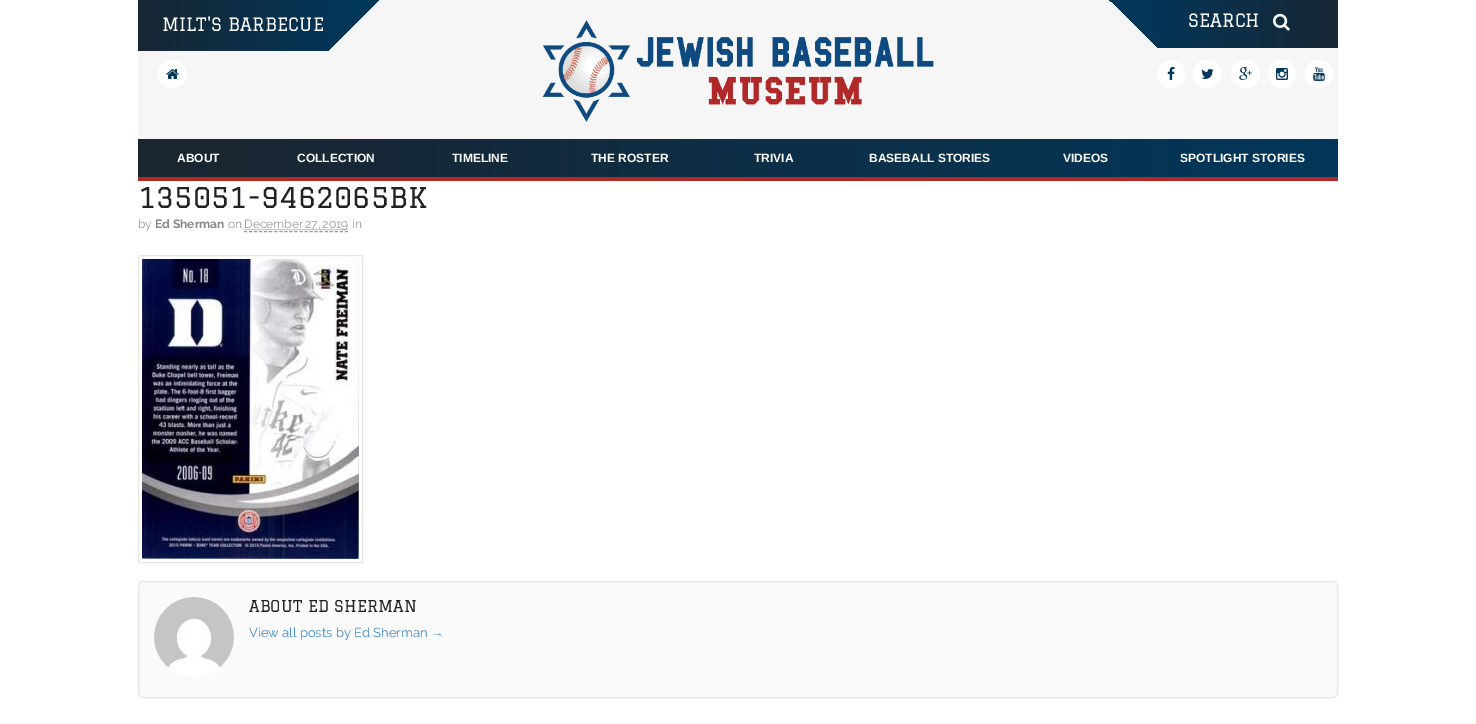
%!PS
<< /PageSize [1476 724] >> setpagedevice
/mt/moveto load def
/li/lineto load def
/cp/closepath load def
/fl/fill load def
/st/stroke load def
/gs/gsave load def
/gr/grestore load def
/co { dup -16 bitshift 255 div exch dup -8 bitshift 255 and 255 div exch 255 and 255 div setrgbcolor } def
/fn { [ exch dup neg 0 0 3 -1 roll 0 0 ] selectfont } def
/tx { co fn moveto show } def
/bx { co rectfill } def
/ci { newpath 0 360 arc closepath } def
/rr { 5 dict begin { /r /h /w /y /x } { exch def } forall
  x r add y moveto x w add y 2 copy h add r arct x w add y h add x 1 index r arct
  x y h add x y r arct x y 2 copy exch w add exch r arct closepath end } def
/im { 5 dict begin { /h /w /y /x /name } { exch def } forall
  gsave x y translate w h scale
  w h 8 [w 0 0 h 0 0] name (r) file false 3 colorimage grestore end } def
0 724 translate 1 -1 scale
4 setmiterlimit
0 0 1476 724 16#FFFFFF bx
138 0 1200 139 16#F6F6F6 bx
gs
138 0 241 51 rectclip
gs 138 0 mt 379 0 li 328 51 li 87 51 li cp clip newpath
<< /ShadingType 2 /ColorSpace /DeviceRGB /Coords [113 26 354 25] /Extend [true true] /Function << /FunctionType 2 /Domain [0 1] /C0 [.106 .145 .184] /C1 [.004 .216 .357] /N 1 >> >> shfill gr
gr
(media/1.raw) 542 20 392 102 im
gs
1097 0 241 48 rectclip
gs 1097 -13 mt 1338 -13 li 1399 48 li 1158 48 li cp clip newpath
<< /ShadingType 2 /ColorSpace /DeviceRGB /Coords [1369 18 1128 17] /Extend [true true] /Function << /FunctionType 2 /Domain [0 1] /C0 [.106 .145 .184] /C1 [.004 .216 .357] /N 1 >> >> shfill gr
gr
(media/2.raw) 1273 13 17 18 im
16#FFFFFF co
158 60 29 28 14 rr fl
(media/3.raw) 166 69 13 10 im
1171 74 14 ci fl
(media/4.raw) 1167 67 8 13 im
1193 60 29 28 14 rr fl
(media/5.raw) 1201 69 13 10 im
1231 60 29 28 14 rr fl
(media/6.raw) 1239 67 13 13 im
1282 74 14 ci fl
(media/7.raw) 1276 68 12 12 im
1319 74 14 ci fl
(media/8.raw) 1313 67 12 14 im
138 177 1200 4 16#B12827 bx
gs 138 139 mt 1338 139 li 1338 177 li 138 177 li cp clip newpath
<< /ShadingType 2 /ColorSpace /DeviceRGB /Coords [138 158 1338 158] /Extend [true true] /Function << /FunctionType 2 /Domain [0 1] /C0 [.106 .145 .184] /C1 [.004 .216 .357] /N 1 >> >> shfill gr
16#999999 co
[3 2.05] 0 setdash
244 231.5 mt 348 231.5 li st
[1 1] 0 setdash
244.5 229.5 mt 348.5 229.5 li st
16#E6E6E6 co
[] 0 setdash
138.5 255.5 224 307 rectstroke
(media/9.raw) 142 259 217 300 im
16#FAFAFA co
138.5 581.5 1199 116 4.5 rr gs fl gr
16#E6E6E6 co
st
(media/10.raw) 154 597 80 80 im
(MILT'S BARBECUE) 162 31 /Graduate-Regular 18 16#FFFFFF tx
(SEARCH) 1188 27 /Graduate-Regular 18 16#FFFFFF tx
(ABOUT) 177 162 /LiberationSans-Bold 12 16#FFFFFF tx
(COLLECTION) 297 162 /LiberationSans-Bold 12 16#FFFFFF tx
(TIMELINE) 452 162 /LiberationSans-Bold 12 16#FFFFFF tx
(THE ROSTER) 591 162 /LiberationSans-Bold 12 16#FFFFFF tx
(TRIVIA) 754 162 /LiberationSans-Bold 12 16#FFFFFF tx
(BASEBALL STORIES) 869 162 /LiberationSans-Bold 12 16#FFFFFF tx
(VIDEOS) 1063 162 /LiberationSans-Bold 12 16#FFFFFF tx
(SPOTLIGHT STORIES) 1180 162 /LiberationSans-Bold 12 16#FFFFFF tx
(135051-9462065BK) 138 208 /Graduate-Regular 28 16#222222 tx
(by) 138 228 /Raleway-Regular 12 16#999999 tx
(Ed Sherman) 155 228 /Raleway-Bold 12 16#888888 tx
(on) 228 228 /Raleway-Regular 12 16#999999 tx
244 228 mt -1 0 32 (December 27, 2019) widthshow
(in) 352 228 /Raleway-Regular 12 16#999999 tx
(ABOUT ED SHERMAN) 249 612 /Graduate-Regular 16 16#222222 tx
(View all posts by Ed Sherman) 249 637 /Raleway-Regular 13 16#428BCA tx
(→) 431 637 /LiberationSans-Regular 13 16#428BCA tx
showpage
